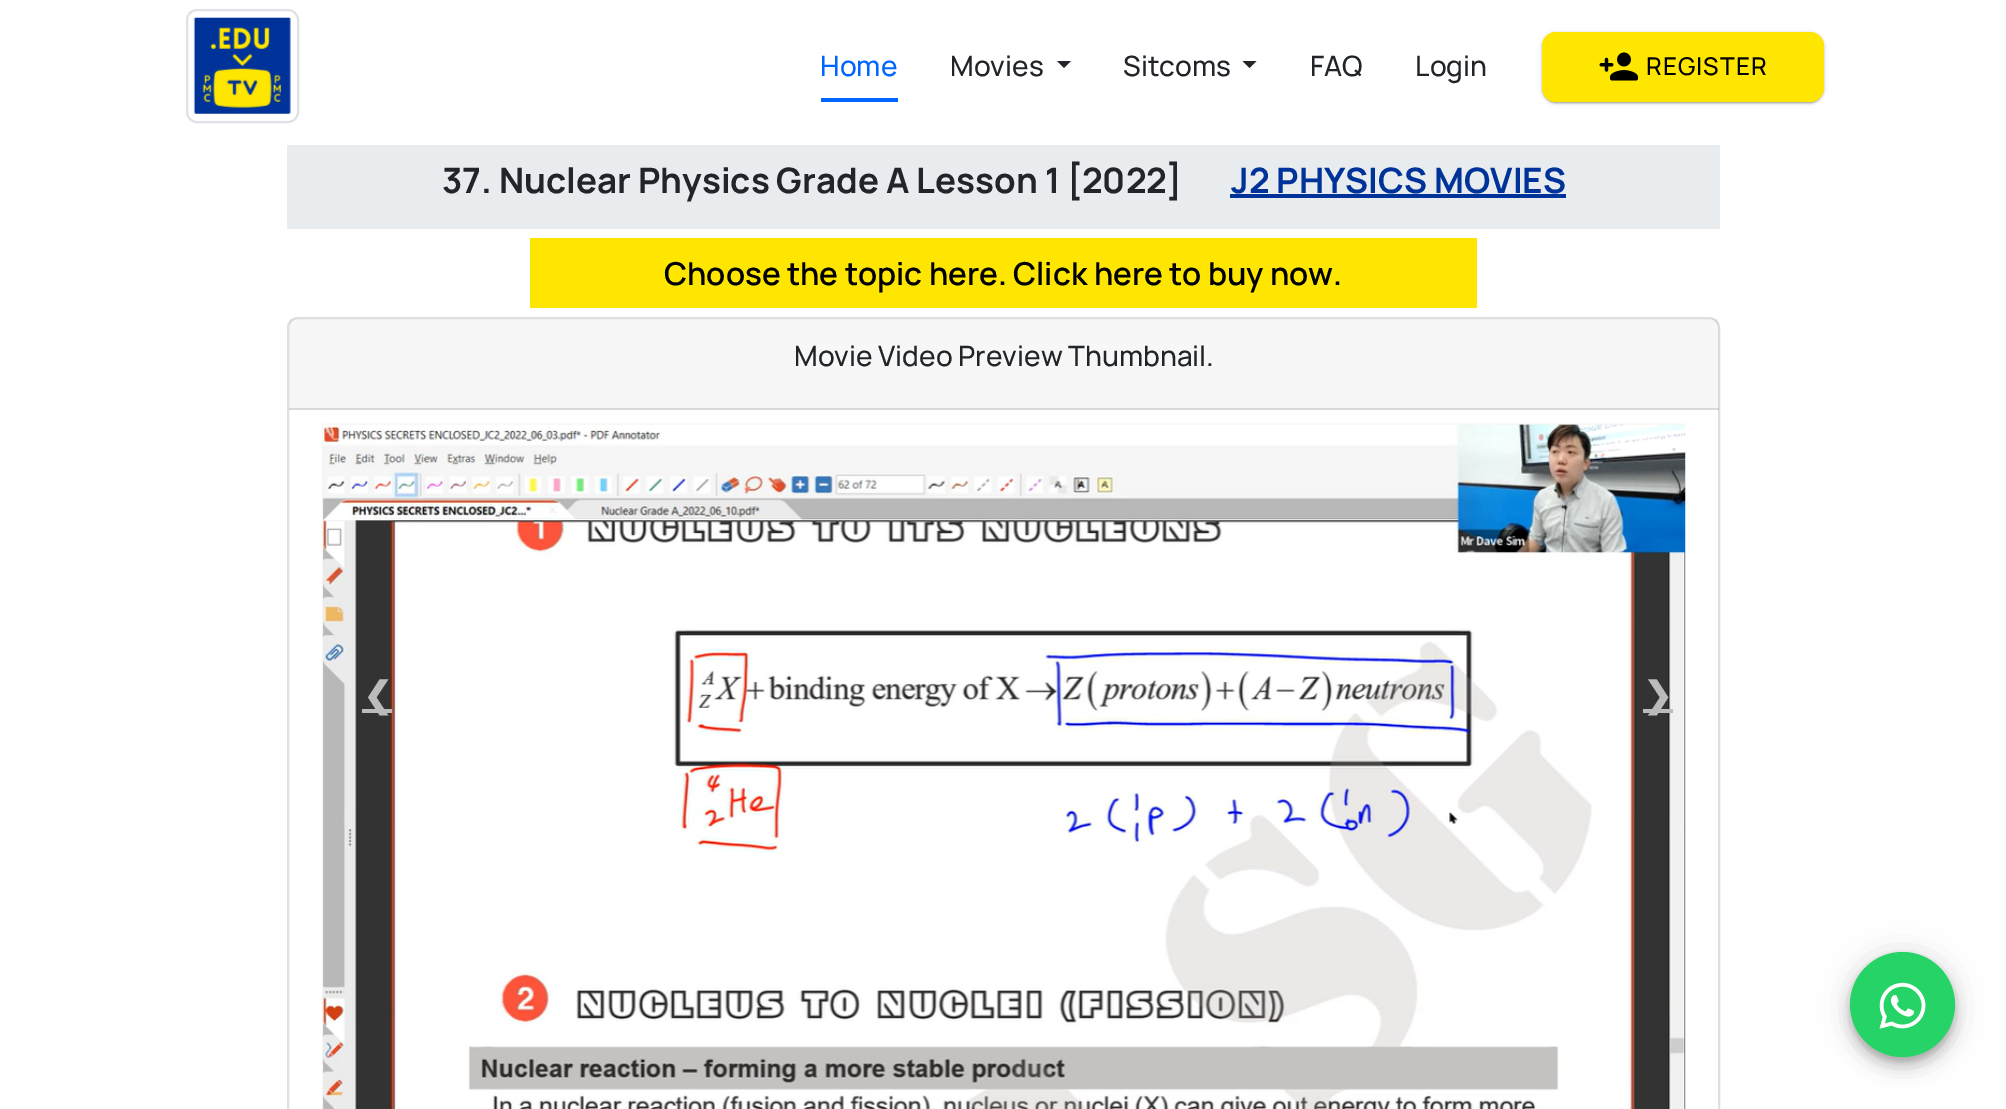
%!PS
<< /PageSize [2006 1109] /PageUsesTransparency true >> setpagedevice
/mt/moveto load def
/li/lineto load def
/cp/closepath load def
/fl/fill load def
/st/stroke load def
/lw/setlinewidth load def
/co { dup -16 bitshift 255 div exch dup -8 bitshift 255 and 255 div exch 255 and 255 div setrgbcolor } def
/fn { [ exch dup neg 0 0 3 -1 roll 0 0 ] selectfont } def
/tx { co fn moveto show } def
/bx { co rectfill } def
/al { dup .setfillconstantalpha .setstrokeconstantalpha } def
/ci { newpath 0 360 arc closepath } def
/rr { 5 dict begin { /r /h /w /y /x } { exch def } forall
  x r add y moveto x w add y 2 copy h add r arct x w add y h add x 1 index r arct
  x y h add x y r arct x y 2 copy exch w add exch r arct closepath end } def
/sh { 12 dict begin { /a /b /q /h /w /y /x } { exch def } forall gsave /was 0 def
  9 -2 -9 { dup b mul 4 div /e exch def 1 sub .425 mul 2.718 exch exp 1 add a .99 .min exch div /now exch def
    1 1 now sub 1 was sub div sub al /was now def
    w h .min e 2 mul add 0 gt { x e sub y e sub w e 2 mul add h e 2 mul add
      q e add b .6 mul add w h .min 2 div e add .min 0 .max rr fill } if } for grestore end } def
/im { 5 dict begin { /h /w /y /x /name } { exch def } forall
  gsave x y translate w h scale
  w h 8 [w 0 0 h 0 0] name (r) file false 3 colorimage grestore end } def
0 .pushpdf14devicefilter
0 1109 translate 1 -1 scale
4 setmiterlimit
0 0 2006 1109 16#FFFFFF bx
16#DEE2E6 co
2 lw
187 10 111 112 10 rr st
(media/1.raw) 193 17 98 97 im
821 98 77 4 16#0066FF bx
16#212529 co
1057 61 mt 1071 61 li 1064 68 li cp fl
1242.5 61 mt 1256.5 61 li 1249.5 68 li cp fl
16#000000 co
1542 33 282 70 14 2.5 .12 sh
1542 33 282 70 14 1 .14 sh
1544 37 278 66 12 1 .2 sh
16#FFE600 co
1542 32 282 70 14 rr fl
(media/2.raw) 1599 52 40 29 im
287 145 1433 84 16#E9ECEF bx
1230 194 336 4 16#003399 bx
530 238 947 70 16#FFE600 bx
16#DFDFDF co
288 318 1431 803 10 rr st
0.03 al
289 319 1430 91 16#000000 bx
0.12 al
289 408 1430 2 16#000000 bx
1 al
(media/3.raw) 322 423 1364 686 im
362 709 30 4 16#BBBBBB bx
1643 709 30 4 16#BBBBBB bx
16#000000 co
1850 954 105 105 52.5 16 .12 sh
1850 963 105 105 52.5 9 .14 sh
1852 959 101 102 50.5 4.5 .2 sh
16#25D366 co
1902.5 1004.5 52.5 ci fl
(media/4.raw) 1879 982 47 47 im
(Home) 820 76 /Manrope-Medium 28 16#0066FF tx
(Movies) 950 76 /Manrope-Medium 28 16#212529 tx
(Sitcoms) 1123 76 /Manrope-Medium 28 16#212529 tx
(FAQ) 1310 76 /Manrope-Medium 28 16#212529 tx
(Login) 1415 76 /Manrope-Medium 28 16#212529 tx
/Manrope-Medium 24.5 fn
16#000000 co
1646 75 mt 1 0 (REGISTER) ashow
(37. Nuclear Physics Grade A Lesson 1 [2022]) 442 193 /Manrope-Bold 35 16#212529 tx
(J2 PHYSICS MOVIES) 1231 193 /Manrope-Bold 35 16#003399 tx
(Choose the topic here. Click here to buy now.) 664 285 /Manrope-SemiBold 31.5 16#000000 tx
(Movie Video Preview Thumbnail.) 794 366 /Manrope-Medium 28 16#212529 tx
(❮) 363 707 /DejaVuSans-Bold 35 16#BBBBBB tx
(❯) 1643 707 /DejaVuSans-Bold 35 16#BBBBBB tx
.poppdf14devicefilter showpage
